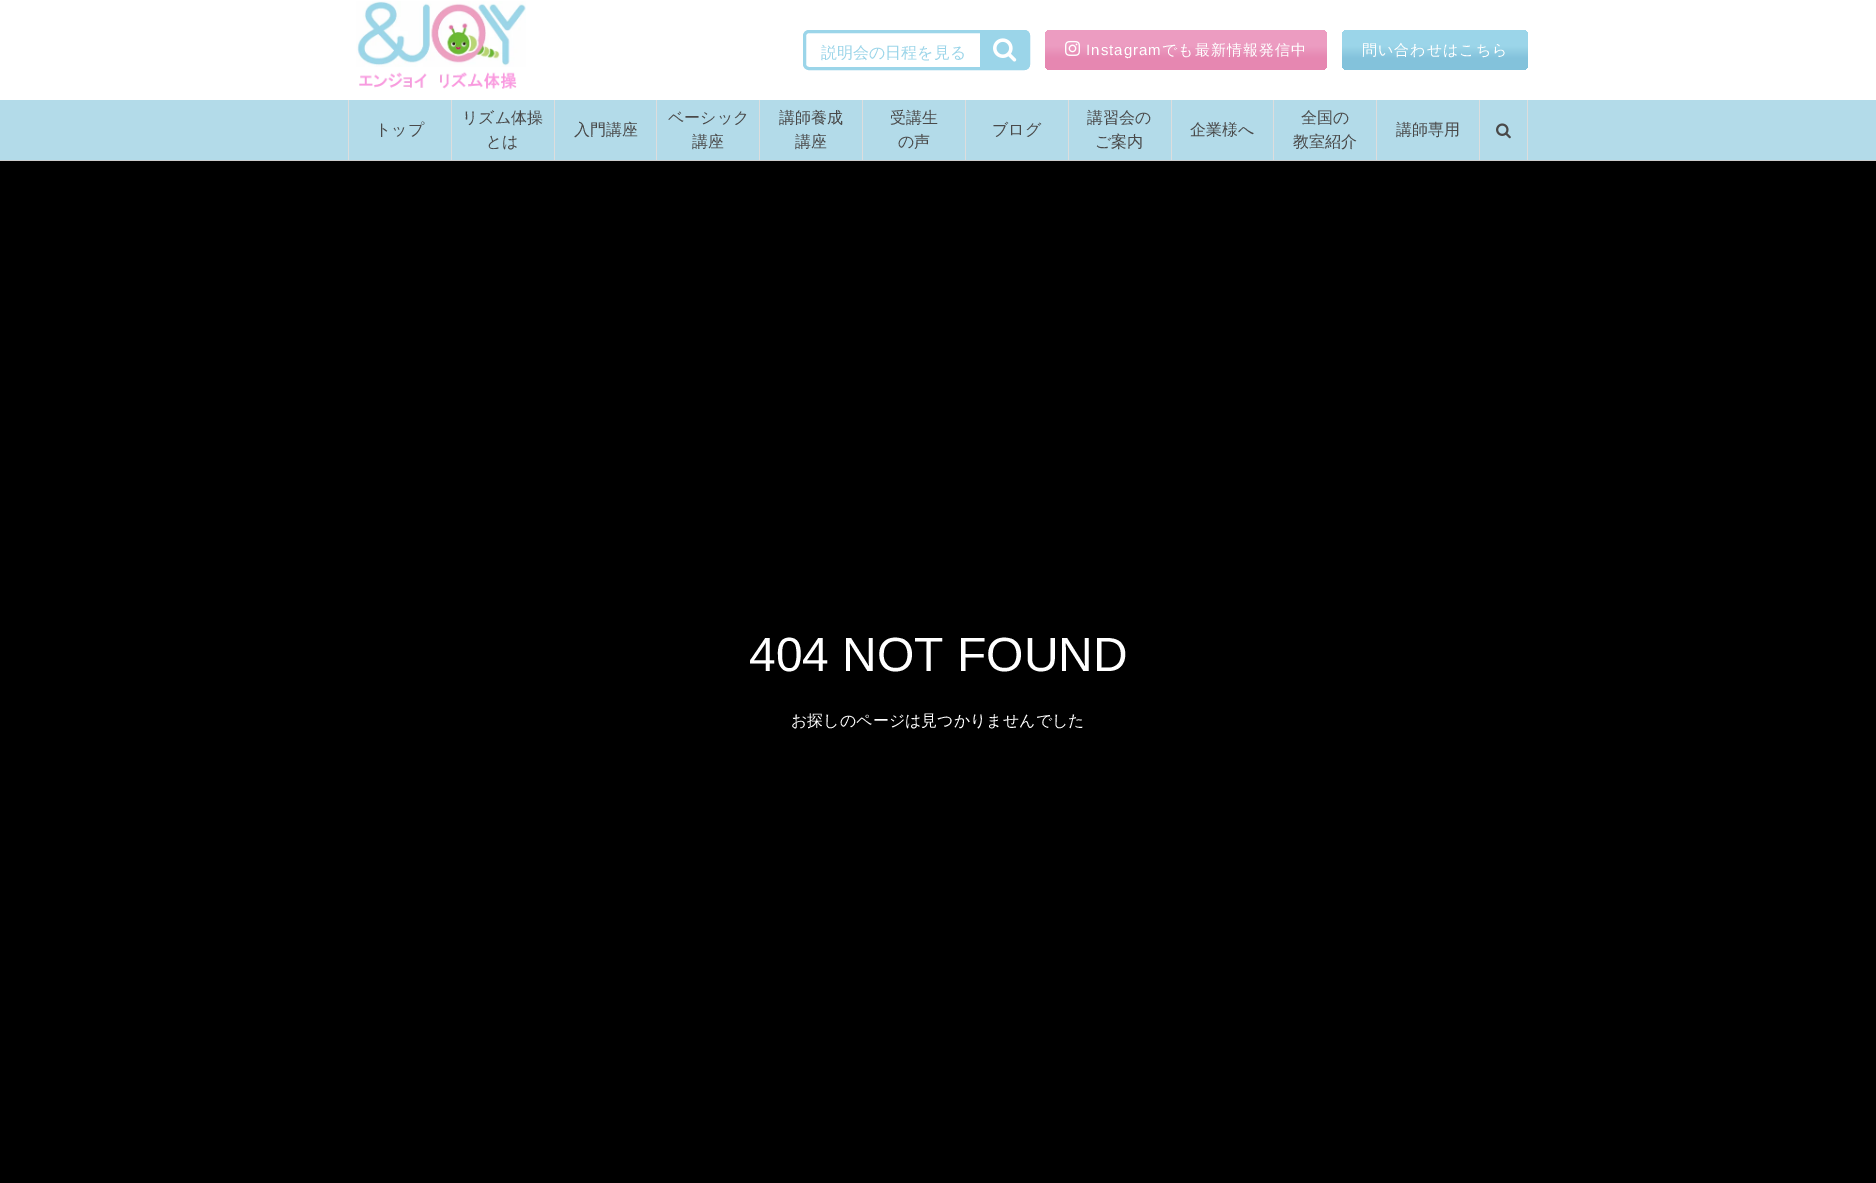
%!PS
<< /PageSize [1876 1183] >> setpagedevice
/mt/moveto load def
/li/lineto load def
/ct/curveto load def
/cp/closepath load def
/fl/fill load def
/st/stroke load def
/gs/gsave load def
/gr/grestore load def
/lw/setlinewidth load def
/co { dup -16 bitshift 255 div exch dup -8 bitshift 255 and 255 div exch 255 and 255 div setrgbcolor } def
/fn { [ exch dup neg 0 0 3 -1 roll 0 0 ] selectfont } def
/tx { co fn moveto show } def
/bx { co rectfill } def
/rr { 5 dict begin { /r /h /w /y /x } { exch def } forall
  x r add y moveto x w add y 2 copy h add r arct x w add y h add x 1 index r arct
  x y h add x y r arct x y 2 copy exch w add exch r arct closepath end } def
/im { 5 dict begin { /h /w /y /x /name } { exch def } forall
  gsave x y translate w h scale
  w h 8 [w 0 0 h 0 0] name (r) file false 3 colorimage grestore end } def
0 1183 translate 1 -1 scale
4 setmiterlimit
0 0 1876 1183 16#FFFFFF bx
(media/1.raw) 356 1 170 88 im
16#9BD5E9 co
980 30 mt 1024 30 li 1027.5 30 1030 32.5 1030 36 ct 1030 64 li 1030 67.5 1027.5 70 1024 70 ct 980 70 li cp fl
(media/2.raw) 993 38 24 24 im
3 lw
804.5 31.5 224 37 4.5 rr st
gs 1045 30 282 40 6 rr clip newpath
<< /ShadingType 2 /ColorSpace /DeviceRGB /Coords [1186 30 1186 70] /Extend [true true] /Function << /FunctionType 3 /Domain [0 1] /Functions [<< /FunctionType 2 /Domain [0 1] /C0 [.925 .612 .757] /C1 [.925 .612 .757] /N 1 >> << /FunctionType 2 /Domain [0 1] /C0 [.925 .612 .757] /C1 [.902 .529 .694] /N 1 >> << /FunctionType 2 /Domain [0 1] /C0 [.902 .529 .694] /C1 [.902 .529 .694] /N 1 >>] /Bounds [.4 .7] /Encode [0 1 0 1 0 1] >> >> shfill gr
(media/3.raw) 1065 40 15 16 im
gs 1342 30 186 40 6 rr clip newpath
<< /ShadingType 2 /ColorSpace /DeviceRGB /Coords [1435 30 1435 70] /Extend [true true] /Function << /FunctionType 3 /Domain [0 1] /Functions [<< /FunctionType 2 /Domain [0 1] /C0 [.608 .835 .914] /C1 [.608 .835 .914] /N 1 >> << /FunctionType 2 /Domain [0 1] /C0 [.608 .835 .914] /C1 [.514 .761 .859] /N 1 >> << /FunctionType 2 /Domain [0 1] /C0 [.514 .761 .859] /C1 [.514 .761 .859] /N 1 >>] /Bounds [.4 .7] /Encode [0 1 0 1 0 1] >> >> shfill gr
0 100 1876 60 16#B3DBE9 bx
0 160 1876 1 16#CCCCCC bx
348 100 1 60 16#DDDDDD bx
451 100 1 60 16#DDDDDD bx
554 100 1 60 16#DDDDDD bx
656 100 1 60 16#DDDDDD bx
759 100 1 60 16#DDDDDD bx
862 100 1 60 16#DDDDDD bx
965 100 1 60 16#DDDDDD bx
1068 100 1 60 16#DDDDDD bx
1171 100 1 60 16#DDDDDD bx
1273 100 1 60 16#DDDDDD bx
1376 100 1 60 16#DDDDDD bx
1479 100 1 60 16#DDDDDD bx
1527 100 1 60 16#DDDDDD bx
(media/4.raw) 1496 123 15 16 im
0 161 1876 1022 16#000000 bx
(説明会の日程を見る) 821 58 /WenQuanYiZenHei-Medium 16 16#9BD5E9 tx
/LiberationSans-Regular 15 fn
16#FFFFFF co
1086 55 mt 1 0 (Instagram) ashow
/WenQuanYiZenHei-Medium 15 fn
1162 55 mt 1 0 (でも最新情報発信中) ashow
1362 55 mt 1 0 (問い合わせはこちら) ashow
(トップ) 375 135 /WenQuanYiZenHei-Medium 16 16#494949 tx
(リズム体操) 462 123 /WenQuanYiZenHei-Medium 16 16#494949 tx
(とは) 486 147 /WenQuanYiZenHei-Medium 16 16#494949 tx
(入門講座) 574 135 /WenQuanYiZenHei-Medium 16 16#494949 tx
(ベーシック) 668 123 /WenQuanYiZenHei-Medium 16 16#494949 tx
(講座) 692 147 /WenQuanYiZenHei-Medium 16 16#494949 tx
(講師養成) 779 123 /WenQuanYiZenHei-Medium 16 16#494949 tx
(講座) 795 147 /WenQuanYiZenHei-Medium 16 16#494949 tx
(受講生) 890 123 /WenQuanYiZenHei-Medium 16 16#494949 tx
(の声) 898 147 /WenQuanYiZenHei-Medium 16 16#494949 tx
(ブログ) 992 135 /WenQuanYiZenHei-Medium 16 16#494949 tx
(講習会の) 1087 123 /WenQuanYiZenHei-Medium 16 16#494949 tx
(ご案内) 1095 147 /WenQuanYiZenHei-Medium 16 16#494949 tx
(企業様へ) 1190 135 /WenQuanYiZenHei-Medium 16 16#494949 tx
(全国の) 1301 123 /WenQuanYiZenHei-Medium 16 16#494949 tx
(教室紹介) 1293 147 /WenQuanYiZenHei-Medium 16 16#494949 tx
(講師専用) 1396 135 /WenQuanYiZenHei-Medium 16 16#494949 tx
(404 NOT FOUND) 749 671 /LiberationSans-Regular 48 16#FFFFFF tx
(お探しのページは見つかりませんでした) 791 726 /WenQuanYiZenHei-Medium 16 16#FFFFFF tx
showpage
